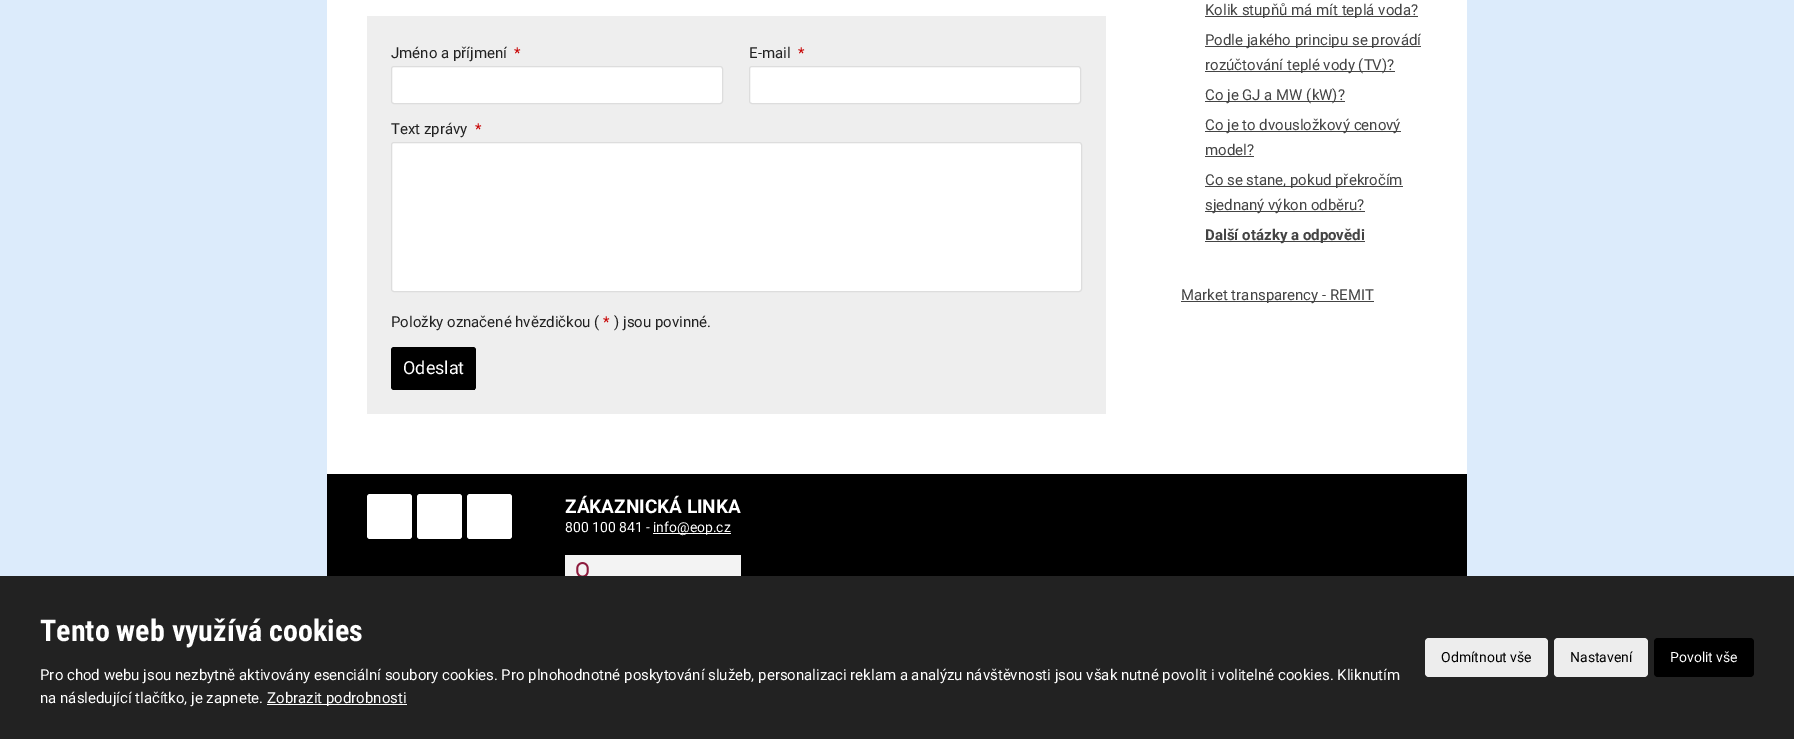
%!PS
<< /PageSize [1794 739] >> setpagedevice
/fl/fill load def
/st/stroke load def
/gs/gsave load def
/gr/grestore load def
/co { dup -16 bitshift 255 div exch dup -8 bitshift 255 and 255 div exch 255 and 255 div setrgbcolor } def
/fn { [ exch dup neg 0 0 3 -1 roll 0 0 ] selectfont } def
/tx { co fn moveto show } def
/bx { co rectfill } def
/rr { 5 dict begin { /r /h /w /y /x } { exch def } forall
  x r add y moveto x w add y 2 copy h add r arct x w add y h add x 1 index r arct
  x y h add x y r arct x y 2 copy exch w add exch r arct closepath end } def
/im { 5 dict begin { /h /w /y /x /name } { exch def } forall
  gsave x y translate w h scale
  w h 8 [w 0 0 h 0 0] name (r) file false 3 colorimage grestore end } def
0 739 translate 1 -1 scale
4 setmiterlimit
0 0 1794 739 16#DCEBFB bx
327 0 1140 474 16#FFFFFF bx
367 16 739 398 16#EEEEEE bx
16#FFFFFF co
391.5 66.5 331 37 2.5 rr gs fl gr
16#DDDDDD co
st
16#FFFFFF co
749.5 66.5 331 37 2.5 rr gs fl gr
16#DDDDDD co
st
16#FFFFFF co
391.5 142.5 690 149 2.5 rr gs fl gr
16#DDDDDD co
st
16#000000 co
391 347 85 43 3 rr fl
393 389 82 1 16#000000 bx
1205 16 213 1 16#444444 bx
1205 46 216 1 16#444444 bx
1205 71 190 1 16#444444 bx
1205 101 140 1 16#444444 bx
1205 131 196 1 16#444444 bx
1205 156 49 1 16#444444 bx
1205 186 198 1 16#444444 bx
1205 211 160 1 16#444444 bx
1205 241 160 1 16#444444 bx
1181 301 193 1 16#444444 bx
327 474 1140 102 16#000000 bx
16#FFFFFF co
367 494 45 45 3 rr fl
417 494 45 45 3 rr fl
467 494 45 45 3 rr fl
653 533 78 1 16#FFFFFF bx
565 555 176 21 16#F3F3F3 bx
(media/1.raw) 576 562 13 14 im
0 576 1794 163 16#222222 bx
267 704 140 1 16#FFFFFF bx
16#EDEDED co
1425 638 123 39 4 rr fl
1554 638 94 39 4 rr fl
16#000000 co
1654 638 100 39 4 rr fl
(Jméno a příjmení) 391 58 /Roboto-Regular 15 16#222222 tx
(*) 514 58 /Roboto-Regular 15 16#C80000 tx
(E-mail) 749 58 /Roboto-Regular 15 16#222222 tx
(*) 798 58 /Roboto-Regular 15 16#C80000 tx
(Text zprávy) 391 134 /Roboto-Regular 15 16#222222 tx
(*) 475 134 /Roboto-Regular 15 16#C80000 tx
(Položky označené hvězdičkou \() 391 327 /Roboto-Regular 15 16#222222 tx
(*) 603 327 /Roboto-Regular 15 16#C80000 tx
(\) jsou povinné.) 614 327 /Roboto-Regular 15 16#222222 tx
(Odeslat) 403 374 /Roboto-Regular 18 16#FFFFFF tx
(Kolik stupňů má mít teplá voda?) 1205 15 /Roboto-Regular 15 16#444444 tx
(Podle jakého principu se provádí) 1205 45 /Roboto-Regular 15 16#444444 tx
(rozúčtování teplé vody \(TV\)?) 1205 70 /Roboto-Regular 15 16#444444 tx
(Co je GJ a MW \(kW\)?) 1205 100 /Roboto-Regular 15 16#444444 tx
(Co je to dvousložkový cenový) 1205 130 /Roboto-Regular 15 16#444444 tx
(model?) 1205 155 /Roboto-Regular 15 16#444444 tx
(Co se stane, pokud překročím) 1205 185 /Roboto-Regular 15 16#444444 tx
(sjednaný výkon odběru?) 1205 210 /Roboto-Regular 15 16#444444 tx
(Další otázky a odpovědi) 1205 240 /Roboto-Bold 15 16#444444 tx
(Market transparency - REMIT) 1181 300 /Roboto-Regular 15 16#444444 tx
(ZÁKAZNICKÁ LINKA) 565 513 /Roboto-Bold 19 16#FFFFFF tx
(800 100 841 -) 565 532 /Roboto-Regular 14 16#FFFFFF tx
(info@eop.cz) 653 532 /Roboto-Regular 14 16#FFFFFF tx
(Tento web využívá cookies) 40 641 /RobotoCondensed-Bold 30 16#FFFFFF tx
(Pro chod webu jsou nezbytně aktivovány esenciální soubory cookies. Pro plnohodnotné poskytování služeb, personalizaci reklam a analýzu návštěvnosti jsou však nutné povolit i volitelné cookies. Kliknutím) 40 680 /Roboto-Regular 15 16#FFFFFF tx
(na následující tlačítko, je zapnete.) 40 703 /Roboto-Regular 15 16#FFFFFF tx
(Zobrazit podrobnosti) 267 703 /Roboto-Regular 15 16#FFFFFF tx
(Odmítnout vše) 1441 662 /Roboto-Regular 14 16#000000 tx
(Nastavení) 1570 662 /Roboto-Regular 14 16#000000 tx
(Povolit vše) 1670 662 /Roboto-Regular 14 16#FFFFFF tx
showpage
